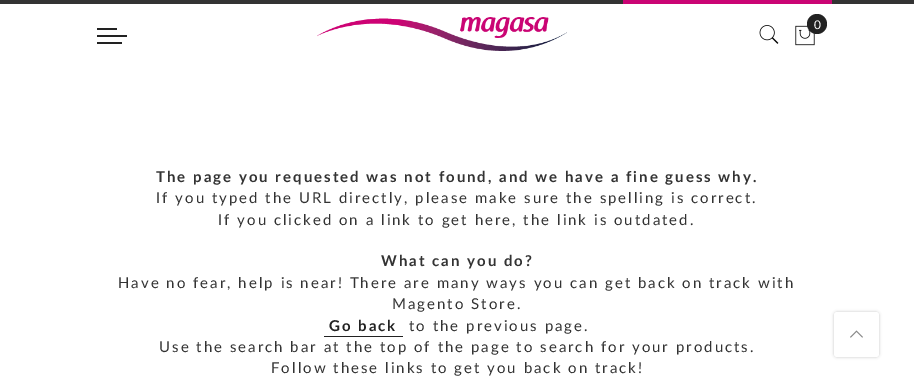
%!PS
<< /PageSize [914 382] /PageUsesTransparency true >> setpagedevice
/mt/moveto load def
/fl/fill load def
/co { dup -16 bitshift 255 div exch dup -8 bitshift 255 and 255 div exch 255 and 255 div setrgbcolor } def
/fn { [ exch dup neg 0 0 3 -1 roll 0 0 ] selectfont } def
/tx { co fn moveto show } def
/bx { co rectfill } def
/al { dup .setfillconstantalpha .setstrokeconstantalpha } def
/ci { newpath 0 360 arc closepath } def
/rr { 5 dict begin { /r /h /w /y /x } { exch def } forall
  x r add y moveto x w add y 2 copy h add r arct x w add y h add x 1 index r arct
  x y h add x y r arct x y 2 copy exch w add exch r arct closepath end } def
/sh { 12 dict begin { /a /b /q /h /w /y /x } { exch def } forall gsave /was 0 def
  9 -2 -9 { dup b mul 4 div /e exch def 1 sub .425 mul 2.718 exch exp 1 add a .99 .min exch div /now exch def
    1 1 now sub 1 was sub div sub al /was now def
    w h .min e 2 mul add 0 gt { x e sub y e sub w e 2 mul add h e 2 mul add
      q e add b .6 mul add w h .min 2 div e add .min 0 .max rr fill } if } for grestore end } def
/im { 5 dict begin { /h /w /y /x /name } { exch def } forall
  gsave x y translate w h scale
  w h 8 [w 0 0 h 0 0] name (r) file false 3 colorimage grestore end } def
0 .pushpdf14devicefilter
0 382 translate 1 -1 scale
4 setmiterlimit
0 0 914 382 16#FFFFFF bx
0 0 914 4 16#333333 bx
623 0 209 4 16#CA0474 bx
(media/1.raw) 317 17 250 34 im
(media/2.raw) 759 25 20 19 im
(media/3.raw) 795 25 20 21 im
16#222222 co
817 24 10 ci fl
97 28 20 2 16#222222 bx
97 35 30 2 16#222222 bx
97 42 25 2 16#222222 bx
324 336 79 1 16#222222 bx
16#000000 co
834 312 45 45 3 1.5 .2 sh
16#FFFFFF co
834 312 45 45 3 rr fl
(media/4.raw) 850 330 13 8 im
(0) 814 29 /Lato-Regular 12 16#FFFFFF tx
/Lato-Bold 15 fn
16#333333 co
156 182 mt 2 0 (The page you requested was not found, and we have a fine guess why.) ashow
/Lato-Regular 15 fn
156 203 mt 2 0 (If you typed the URL directly, please make sure the spelling is correct.) ashow
218 225 mt 2 0 (If you clicked on a link to get here, the link is outdated.) ashow
/Lato-Bold 15 fn
381 266 mt 2 0 (What can you do?) ashow
/Lato-Regular 15 fn
118 288 mt 2 0 (Have no fear, help is near! There are many ways you can get back on track with) ashow
392 309 mt 2 0 (Magento Store.) ashow
/Lato-Bold 15 fn
16#222222 co
329 331 mt 2 0 (Go back) ashow
/Lato-Regular 15 fn
16#333333 co
409 331 mt 2 0 (to the previous page.) ashow
159 352 mt 2 0 (Use the search bar at the top of the page to search for your products.) ashow
271 373 mt 2 0 (Follow these links to get you back on track!) ashow
.poppdf14devicefilter showpage
